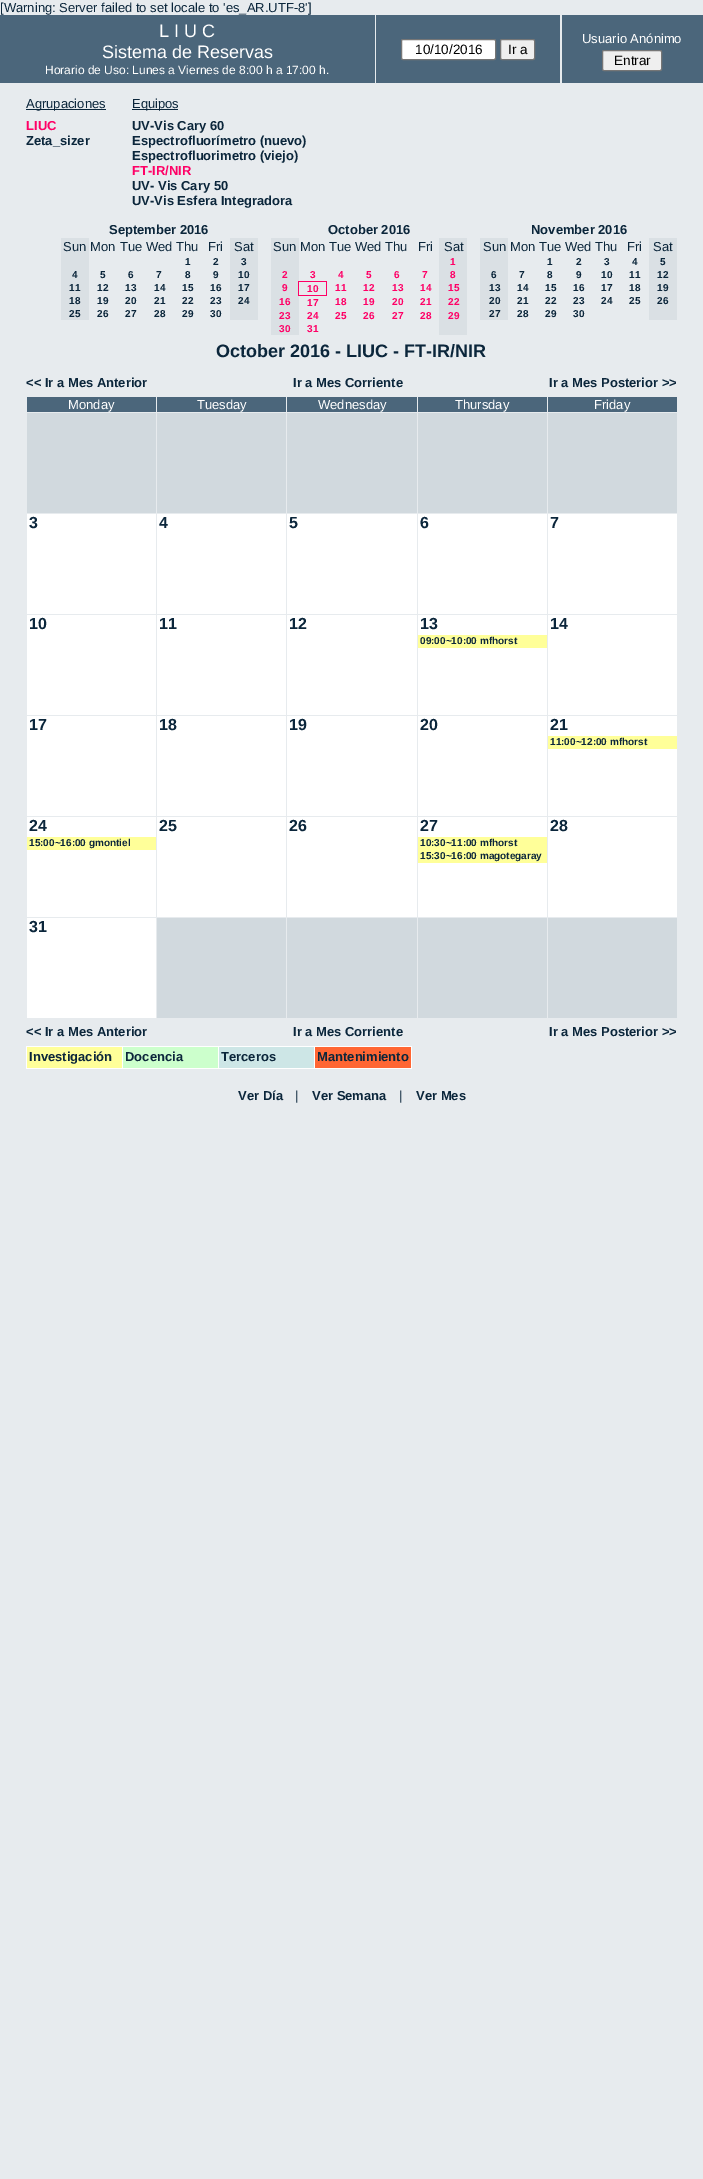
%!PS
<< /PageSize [703 2179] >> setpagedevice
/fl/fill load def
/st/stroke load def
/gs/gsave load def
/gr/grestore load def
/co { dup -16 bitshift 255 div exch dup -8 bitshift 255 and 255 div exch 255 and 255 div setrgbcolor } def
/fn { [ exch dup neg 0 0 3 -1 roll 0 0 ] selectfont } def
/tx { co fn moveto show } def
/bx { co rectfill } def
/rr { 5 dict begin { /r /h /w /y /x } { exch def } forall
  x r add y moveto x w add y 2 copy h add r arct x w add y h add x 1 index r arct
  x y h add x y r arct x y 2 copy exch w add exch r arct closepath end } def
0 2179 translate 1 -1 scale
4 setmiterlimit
0 0 703 2179 16#E7EBEE bx
0 15 375 68 16#4B667B bx
376 15 184 68 16#4B667B bx
16#FFFFFF co
401.5 39.5 94 20 1.5 rr gs fl gr
16#767676 co
st
16#EFEFEF co
500.5 39.5 34 20 1.5 rr gs fl gr
16#767676 co
st
562 15 141 68 16#4B667B bx
16#EFEFEF co
602.5 50.5 59 20 1.5 rr gs fl gr
16#767676 co
st
26 109 80 1 16#0B263B bx
132 109 46 1 16#0B263B bx
61 238 28 82 16#DAE0E4 bx
230 238 28 82 16#DAE0E4 bx
271 238 28 43 16#DAE0E4 bx
439 238 28 97 16#DAE0E4 bx
271 281 27 14 16#DAE0E4 bx
298 281 29 1 16#FF0066 bx
326 281 1 15 16#FF0066 bx
271 295 28 40 16#DAE0E4 bx
298 295 29 1 16#FF0066 bx
298 281 1 15 16#FF0066 bx
480 238 28 82 16#DAE0E4 bx
649 238 28 82 16#DAE0E4 bx
27 397 129 15 16#4B667B bx
157 397 129 15 16#4B667B bx
287 397 130 15 16#4B667B bx
418 397 129 15 16#4B667B bx
548 397 129 15 16#4B667B bx
27 413 129 100 16#D1D9DE bx
157 413 129 100 16#D1D9DE bx
287 413 130 100 16#D1D9DE bx
418 413 129 100 16#D1D9DE bx
548 413 129 100 16#D1D9DE bx
27 514 129 100 16#FFFFFF bx
157 514 129 100 16#FFFFFF bx
287 514 130 100 16#FFFFFF bx
418 514 129 100 16#FFFFFF bx
548 514 129 100 16#FFFFFF bx
27 615 129 100 16#FFFFFF bx
157 615 129 100 16#FFFFFF bx
287 615 130 100 16#FFFFFF bx
418 615 129 100 16#FFFFFF bx
418 635 129 13 16#FFFF99 bx
548 615 129 100 16#FFFFFF bx
27 716 129 100 16#FFFFFF bx
157 716 129 100 16#FFFFFF bx
287 716 130 100 16#FFFFFF bx
418 716 129 100 16#FFFFFF bx
548 716 129 100 16#FFFFFF bx
548 736 129 13 16#FFFF99 bx
27 817 129 100 16#FFFFFF bx
27 837 129 13 16#FFFF99 bx
157 817 129 100 16#FFFFFF bx
287 817 130 100 16#FFFFFF bx
418 817 129 100 16#FFFFFF bx
418 837 129 26 16#FFFF99 bx
548 817 129 100 16#FFFFFF bx
27 918 129 100 16#FFFFFF bx
157 918 129 100 16#D1D9DE bx
287 918 130 100 16#D1D9DE bx
418 918 129 100 16#D1D9DE bx
548 918 129 100 16#D1D9DE bx
27 1047 95 21 16#FFFF99 bx
314 1046 98 1 16#FFFFFF bx
411 1046 1 23 16#FFFFFF bx
314 1068 98 1 16#FFFFFF bx
314 1046 1 23 16#FFFFFF bx
218 1046 97 1 16#FFFFFF bx
218 1068 97 1 16#FFFFFF bx
218 1046 1 23 16#FFFFFF bx
122 1046 97 1 16#FFFFFF bx
122 1068 97 1 16#FFFFFF bx
122 1046 1 23 16#FFFFFF bx
26 1046 97 1 16#FFFFFF bx
26 1068 97 1 16#FFFFFF bx
26 1046 1 23 16#FFFFFF bx
123 1047 95 21 16#CCFFCC bx
219 1047 95 21 16#CDE6E6 bx
315 1047 96 21 16#FF6633 bx
([Warning: Server failed to set locale to 'es_AR.UTF-8']) 0 12 /LiberationSans-Regular 13 16#0B263B tx
(L I U C) 159 37 /LiberationSans-Regular 18 16#FFFFFF tx
(Sistema de Reservas) 102 58 /LiberationSans-Regular 18 16#FFFFFF tx
(Horario de Uso: Lunes a Viernes de 8:00 h a 17:00 h.) 45 74 /LiberationSans-Regular 12 16#FFFFFF tx
(10/10/2016) 415 54 /LiberationSans-Regular 13.5 16#000000 tx
(Ir a) 508 54 /LiberationSans-Regular 13.5 16#000000 tx
(Usuario Anónimo) 582 43 /LiberationSans-Regular 13 16#FFFFFF tx
(Entrar) 614 65 /LiberationSans-Regular 13.5 16#000000 tx
(Agrupaciones) 26 108 /LiberationSans-Regular 13 16#0B263B tx
(LIUC) 26 130 /LiberationSans-Bold 13 16#FF0066 tx
(Zeta_sizer) 26 145 /LiberationSans-Bold 13 16#0B263B tx
(Equipos) 132 108 /LiberationSans-Regular 13 16#0B263B tx
(UV-Vis Cary 60) 132 130 /LiberationSans-Bold 13 16#0B263B tx
(Espectrofluorímetro \(nuevo\)) 132 145 /LiberationSans-Bold 13 16#0B263B tx
(Espectrofluorimetro \(viejo\)) 132 160 /LiberationSans-Bold 13 16#0B263B tx
(FT-IR/NIR) 132 175 /LiberationSans-Bold 13 16#FF0066 tx
(UV- Vis Cary 50) 132 190 /LiberationSans-Bold 13 16#0B263B tx
(UV-Vis Esfera Integradora) 132 205 /LiberationSans-Bold 13 16#0B263B tx
(September 2016) 109 234 /LiberationSans-Bold 13 16#0B263B tx
(Sun Mon) 63 251 /LiberationSans-Regular 13 16#0B263B tx
(Tue Wed Thu) 120 251 /LiberationSans-Regular 13 16#0B263B tx
(Fri) 208 251 /LiberationSans-Regular 13 16#0B263B tx
(Sat) 234 251 /LiberationSans-Regular 13 16#0B263B tx
(1) 185 265 /LiberationSans-Bold 10 16#0B263B tx
(2) 213 265 /LiberationSans-Bold 10 16#0B263B tx
(3) 241 265 /LiberationSans-Bold 10 16#0B263B tx
(4) 72 278 /LiberationSans-Bold 10 16#0B263B tx
(5) 100 278 /LiberationSans-Bold 10 16#0B263B tx
(6) 128 278 /LiberationSans-Bold 10 16#0B263B tx
(7) 156 278 /LiberationSans-Bold 10 16#0B263B tx
(8) 185 278 /LiberationSans-Bold 10 16#0B263B tx
(9) 213 278 /LiberationSans-Bold 10 16#0B263B tx
(10) 238 278 /LiberationSans-Bold 10 16#0B263B tx
(11) 69 291 /LiberationSans-Bold 10 16#0B263B tx
(12) 97 291 /LiberationSans-Bold 10 16#0B263B tx
(13) 125 291 /LiberationSans-Bold 10 16#0B263B tx
(14) 154 291 /LiberationSans-Bold 10 16#0B263B tx
(15) 182 291 /LiberationSans-Bold 10 16#0B263B tx
(16) 210 291 /LiberationSans-Bold 10 16#0B263B tx
(17) 238 291 /LiberationSans-Bold 10 16#0B263B tx
(18) 69 304 /LiberationSans-Bold 10 16#0B263B tx
(19) 97 304 /LiberationSans-Bold 10 16#0B263B tx
(20) 125 304 /LiberationSans-Bold 10 16#0B263B tx
(21) 154 304 /LiberationSans-Bold 10 16#0B263B tx
(22) 182 304 /LiberationSans-Bold 10 16#0B263B tx
(23) 210 304 /LiberationSans-Bold 10 16#0B263B tx
(24) 238 304 /LiberationSans-Bold 10 16#0B263B tx
(25) 69 317 /LiberationSans-Bold 10 16#0B263B tx
(26) 97 317 /LiberationSans-Bold 10 16#0B263B tx
(27) 125 317 /LiberationSans-Bold 10 16#0B263B tx
(28) 154 317 /LiberationSans-Bold 10 16#0B263B tx
(29) 182 317 /LiberationSans-Bold 10 16#0B263B tx
(30) 210 317 /LiberationSans-Bold 10 16#0B263B tx
(October 2016) 328 234 /LiberationSans-Bold 13 16#0B263B tx
(Sun Mon) 273 251 /LiberationSans-Regular 13 16#0B263B tx
(Tue Wed Thu) 329 251 /LiberationSans-Regular 13 16#0B263B tx
(Fri) 418 251 /LiberationSans-Regular 13 16#0B263B tx
(Sat) 444 251 /LiberationSans-Regular 13 16#0B263B tx
(1) 450 265 /LiberationSans-Bold 10 16#FF0066 tx
(2) 282 278 /LiberationSans-Bold 10 16#FF0066 tx
(3) 310 278 /LiberationSans-Bold 10 16#FF0066 tx
(4) 338 278 /LiberationSans-Bold 10 16#FF0066 tx
(5) 366 278 /LiberationSans-Bold 10 16#FF0066 tx
(6) 394 278 /LiberationSans-Bold 10 16#FF0066 tx
(7) 422 278 /LiberationSans-Bold 10 16#FF0066 tx
(8) 450 278 /LiberationSans-Bold 10 16#FF0066 tx
(9) 282 291 /LiberationSans-Bold 10 16#FF0066 tx
(10) 307 292 /LiberationSans-Bold 10 16#FF0066 tx
(11) 335 291 /LiberationSans-Bold 10 16#FF0066 tx
(12) 363 291 /LiberationSans-Bold 10 16#FF0066 tx
(13) 392 291 /LiberationSans-Bold 10 16#FF0066 tx
(14) 420 291 /LiberationSans-Bold 10 16#FF0066 tx
(15) 448 291 /LiberationSans-Bold 10 16#FF0066 tx
(16) 279 305 /LiberationSans-Bold 10 16#FF0066 tx
(17) 307 306 /LiberationSans-Bold 10 16#FF0066 tx
(18) 335 305 /LiberationSans-Bold 10 16#FF0066 tx
(19) 363 305 /LiberationSans-Bold 10 16#FF0066 tx
(20) 392 305 /LiberationSans-Bold 10 16#FF0066 tx
(21) 420 305 /LiberationSans-Bold 10 16#FF0066 tx
(22) 448 305 /LiberationSans-Bold 10 16#FF0066 tx
(23) 279 319 /LiberationSans-Bold 10 16#FF0066 tx
(24) 307 319 /LiberationSans-Bold 10 16#FF0066 tx
(25) 335 319 /LiberationSans-Bold 10 16#FF0066 tx
(26) 363 319 /LiberationSans-Bold 10 16#FF0066 tx
(27) 392 319 /LiberationSans-Bold 10 16#FF0066 tx
(28) 420 319 /LiberationSans-Bold 10 16#FF0066 tx
(29) 448 319 /LiberationSans-Bold 10 16#FF0066 tx
(30) 279 332 /LiberationSans-Bold 10 16#FF0066 tx
(31) 307 332 /LiberationSans-Bold 10 16#FF0066 tx
(November 2016) 531 234 /LiberationSans-Bold 13 16#0B263B tx
(Sun Mon) 483 251 /LiberationSans-Regular 13 16#0B263B tx
(Tue Wed Thu) 539 251 /LiberationSans-Regular 13 16#0B263B tx
(Fri) 627 251 /LiberationSans-Regular 13 16#0B263B tx
(Sat) 653 251 /LiberationSans-Regular 13 16#0B263B tx
(1) 547 265 /LiberationSans-Bold 10 16#0B263B tx
(2) 576 265 /LiberationSans-Bold 10 16#0B263B tx
(3) 604 265 /LiberationSans-Bold 10 16#0B263B tx
(4) 632 265 /LiberationSans-Bold 10 16#0B263B tx
(5) 660 265 /LiberationSans-Bold 10 16#0B263B tx
(6) 491 278 /LiberationSans-Bold 10 16#0B263B tx
(7) 519 278 /LiberationSans-Bold 10 16#0B263B tx
(8) 547 278 /LiberationSans-Bold 10 16#0B263B tx
(9) 576 278 /LiberationSans-Bold 10 16#0B263B tx
(10) 601 278 /LiberationSans-Bold 10 16#0B263B tx
(11) 629 278 /LiberationSans-Bold 10 16#0B263B tx
(12) 657 278 /LiberationSans-Bold 10 16#0B263B tx
(13) 489 291 /LiberationSans-Bold 10 16#0B263B tx
(14) 517 291 /LiberationSans-Bold 10 16#0B263B tx
(15) 545 291 /LiberationSans-Bold 10 16#0B263B tx
(16) 573 291 /LiberationSans-Bold 10 16#0B263B tx
(17) 601 291 /LiberationSans-Bold 10 16#0B263B tx
(18) 629 291 /LiberationSans-Bold 10 16#0B263B tx
(19) 657 291 /LiberationSans-Bold 10 16#0B263B tx
(20) 489 304 /LiberationSans-Bold 10 16#0B263B tx
(21) 517 304 /LiberationSans-Bold 10 16#0B263B tx
(22) 545 304 /LiberationSans-Bold 10 16#0B263B tx
(23) 573 304 /LiberationSans-Bold 10 16#0B263B tx
(24) 601 304 /LiberationSans-Bold 10 16#0B263B tx
(25) 629 304 /LiberationSans-Bold 10 16#0B263B tx
(26) 657 304 /LiberationSans-Bold 10 16#0B263B tx
(27) 489 317 /LiberationSans-Bold 10 16#0B263B tx
(28) 517 317 /LiberationSans-Bold 10 16#0B263B tx
(29) 545 317 /LiberationSans-Bold 10 16#0B263B tx
(30) 573 317 /LiberationSans-Bold 10 16#0B263B tx
(October 2016 - LIUC - FT-IR/NIR) 216 357 /LiberationSans-Bold 18 16#0B263B tx
(<< Ir a Mes Anterior) 26 387 /LiberationSans-Bold 13 16#0B263B tx
(Ir a Mes Corriente) 293 387 /LiberationSans-Bold 13 16#0B263B tx
(Ir a Mes Posterior >>) 549 387 /LiberationSans-Bold 13 16#0B263B tx
(Monday) 68 409 /LiberationSans-Regular 13 16#FFFFFF tx
(Tuesday) 197 409 /LiberationSans-Regular 13 16#FFFFFF tx
(Wednesday) 318 409 /LiberationSans-Regular 13 16#FFFFFF tx
(Thursday) 455 409 /LiberationSans-Regular 13 16#FFFFFF tx
(Friday) 594 409 /LiberationSans-Regular 13 16#FFFFFF tx
(3) 29 528 /LiberationSans-Bold 16 16#0B263B tx
(4) 159 528 /LiberationSans-Bold 16 16#0B263B tx
(5) 289 528 /LiberationSans-Bold 16 16#0B263B tx
(6) 420 528 /LiberationSans-Bold 16 16#0B263B tx
(7) 550 528 /LiberationSans-Bold 16 16#0B263B tx
(10) 29 629 /LiberationSans-Bold 16 16#0B263B tx
(11) 159 629 /LiberationSans-Bold 16 16#0B263B tx
(12) 289 629 /LiberationSans-Bold 16 16#0B263B tx
(13) 420 629 /LiberationSans-Bold 16 16#0B263B tx
(09:00~10:00 mfhorst) 420 644 /LiberationSans-Bold 10 16#0B263B tx
(14) 550 629 /LiberationSans-Bold 16 16#0B263B tx
(17) 29 730 /LiberationSans-Bold 16 16#0B263B tx
(18) 159 730 /LiberationSans-Bold 16 16#0B263B tx
(19) 289 730 /LiberationSans-Bold 16 16#0B263B tx
(20) 420 730 /LiberationSans-Bold 16 16#0B263B tx
(21) 550 730 /LiberationSans-Bold 16 16#0B263B tx
(11:00~12:00 mfhorst) 550 745 /LiberationSans-Bold 10 16#0B263B tx
(24) 29 831 /LiberationSans-Bold 16 16#0B263B tx
(15:00~16:00 gmontiel) 29 846 /LiberationSans-Bold 10 16#0B263B tx
(25) 159 831 /LiberationSans-Bold 16 16#0B263B tx
(26) 289 831 /LiberationSans-Bold 16 16#0B263B tx
(27) 420 831 /LiberationSans-Bold 16 16#0B263B tx
(10:30~11:00 mfhorst) 420 846 /LiberationSans-Bold 10 16#0B263B tx
(15:30~16:00 magotegaray) 420 859 /LiberationSans-Bold 10 16#0B263B tx
(28) 550 831 /LiberationSans-Bold 16 16#0B263B tx
(31) 29 932 /LiberationSans-Bold 16 16#0B263B tx
(<< Ir a Mes Anterior) 26 1036 /LiberationSans-Bold 13 16#0B263B tx
(Ir a Mes Corriente) 293 1036 /LiberationSans-Bold 13 16#0B263B tx
(Ir a Mes Posterior >>) 549 1036 /LiberationSans-Bold 13 16#0B263B tx
(Investigación) 29 1061 /LiberationSans-Bold 13 16#0B263B tx
(Docencia) 125 1061 /LiberationSans-Bold 13 16#0B263B tx
(Terceros) 221 1061 /LiberationSans-Bold 13 16#0B263B tx
(Mantenimiento) 317 1061 /LiberationSans-Bold 13 16#0B263B tx
(Ver Día) 238 1100 /LiberationSans-Bold 13 16#0B263B tx
(|) 295 1100 /LiberationSans-Regular 13 16#0B263B tx
(Ver Semana) 312 1100 /LiberationSans-Bold 13 16#0B263B tx
(|) 399 1100 /LiberationSans-Regular 13 16#0B263B tx
(Ver Mes) 416 1100 /LiberationSans-Bold 13 16#0B263B tx
showpage
